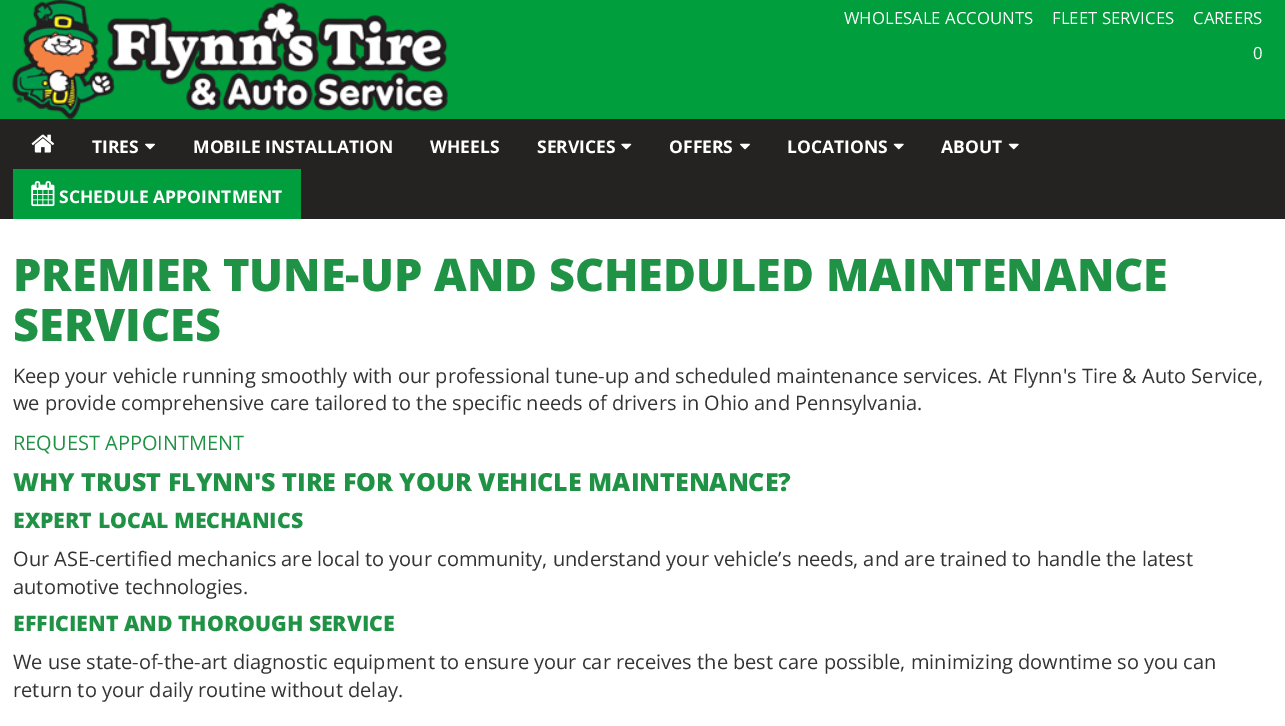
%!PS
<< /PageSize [1285 726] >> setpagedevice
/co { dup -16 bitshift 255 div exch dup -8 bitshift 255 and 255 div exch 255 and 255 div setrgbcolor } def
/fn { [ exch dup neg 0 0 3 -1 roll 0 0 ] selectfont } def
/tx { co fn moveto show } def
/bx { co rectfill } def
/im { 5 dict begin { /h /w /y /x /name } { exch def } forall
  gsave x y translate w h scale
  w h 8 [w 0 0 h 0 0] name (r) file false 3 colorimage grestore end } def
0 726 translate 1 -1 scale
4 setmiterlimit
0 0 1285 726 16#FFFFFF bx
0 0 1285 119 16#009E3D bx
(media/1.raw) 12 0 436 119 im
0 119 1285 100 16#242321 bx
(media/2.raw) 31 134 24 19 im
(media/3.raw) 145 143 10 7 im
(media/4.raw) 621 143 11 7 im
(media/3.raw) 740 143 10 7 im
(media/5.raw) 893 143 11 7 im
(media/5.raw) 1008 143 11 7 im
13 169 288 50 16#009E3D bx
(media/6.raw) 31 181 24 26 im
(WHOLESALE ACCOUNTS) 844 24 /OpenSans-Regular 16.75 16#FFFFFF tx
(FLEET SERVICES) 1052 24 /OpenSans-Regular 16.75 16#FFFFFF tx
(CAREERS) 1193 24 /OpenSans-Regular 16.75 16#FFFFFF tx
(0) 1253 59 /OpenSans-Regular 16.75 16#FFFFFF tx
(TIRES) 92 153 /OpenSans-Bold 17.5 16#FFFFFF tx
(MOBILE INSTALLATION) 193 153 /OpenSans-Bold 17.5 16#FFFFFF tx
(WHEELS) 430 153 /OpenSans-Bold 17.5 16#FFFFFF tx
(SERVICES) 537 153 /OpenSans-Bold 17.5 16#FFFFFF tx
(OFFERS) 669 153 /OpenSans-Bold 17.5 16#FFFFFF tx
(LOCATIONS) 787 153 /OpenSans-Bold 17.5 16#FFFFFF tx
(ABOUT) 941 153 /OpenSans-Bold 17.5 16#FFFFFF tx
(SCHEDULE APPOINTMENT) 59 203 /OpenSans-Bold 17.5 16#FFFFFF tx
(PREMIER TUNE-UP AND SCHEDULED MAINTENANCE) 13 291 /OpenSans-ExtraBold 45 16#209245 tx
(SERVICES) 13 341 /OpenSans-ExtraBold 45 16#209245 tx
(Keep your vehicle running smoothly with our professional tune-up and scheduled maintenance services. At Flynn's Tire & Auto Service,) 13 383 /OpenSans-Regular 20 16#333333 tx
(we provide comprehensive care tailored to the specific needs of drivers in Ohio and Pennsylvania.) 13 410 /OpenSans-Regular 20 16#333333 tx
(REQUEST APPOINTMENT) 13 450 /OpenSans-Regular 20 16#209245 tx
(WHY TRUST FLYNN'S TIRE FOR YOUR VEHICLE MAINTENANCE?) 13 491 /OpenSans-ExtraBold 25 16#209245 tx
(EXPERT LOCAL MECHANICS) 13 528 /OpenSans-ExtraBold 21.25 16#209245 tx
(Our ASE-certified mechanics are local to your community, understand your vehicle’s needs, and are trained to handle the latest) 13 566 /OpenSans-Regular 20 16#333333 tx
(automotive technologies.) 13 594 /OpenSans-Regular 20 16#333333 tx
(EFFICIENT AND THOROUGH SERVICE) 13 631 /OpenSans-ExtraBold 21.25 16#209245 tx
(We use state-of-the-art diagnostic equipment to ensure your car receives the best care possible, minimizing downtime so you can) 13 669 /OpenSans-Regular 20 16#333333 tx
(return to your daily routine without delay.) 13 697 /OpenSans-Regular 20 16#333333 tx
showpage
